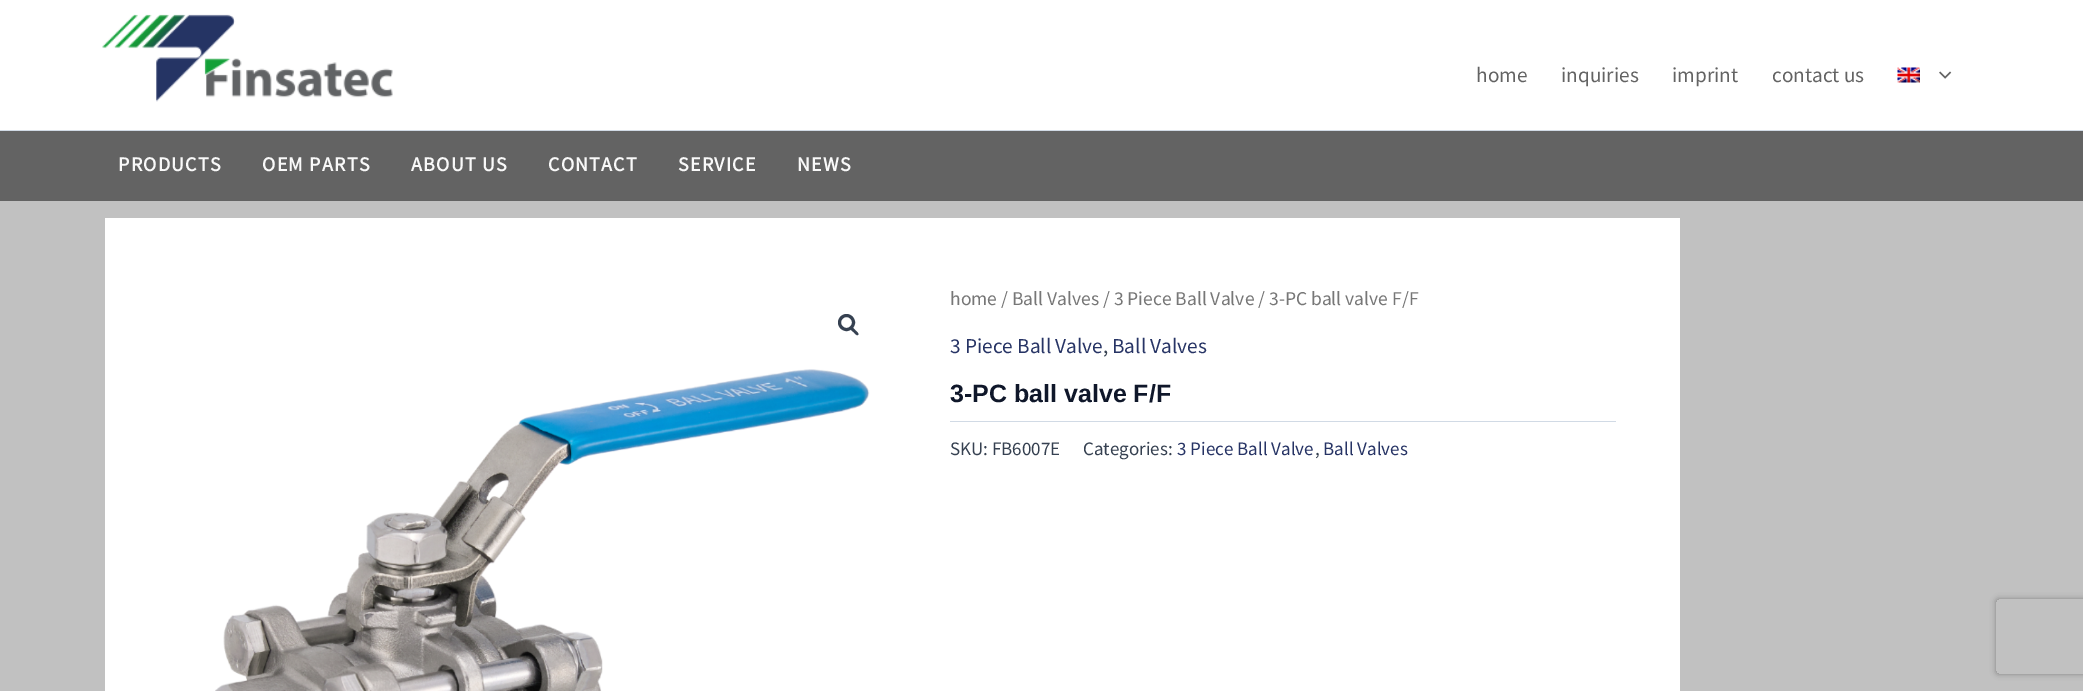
%!PS
<< /PageSize [2083 691] /PageUsesTransparency true >> setpagedevice
/mt/moveto load def
/li/lineto load def
/ct/curveto load def
/cp/closepath load def
/fl/fill load def
/st/stroke load def
/gs/gsave load def
/gr/grestore load def
/lw/setlinewidth load def
/co { dup -16 bitshift 255 div exch dup -8 bitshift 255 and 255 div exch 255 and 255 div setrgbcolor } def
/fn { [ exch dup neg 0 0 3 -1 roll 0 0 ] selectfont } def
/tx { co fn moveto show } def
/bx { co rectfill } def
/al { dup .setfillconstantalpha .setstrokeconstantalpha } def
/ci { newpath 0 360 arc closepath } def
/rr { 5 dict begin { /r /h /w /y /x } { exch def } forall
  x r add y moveto x w add y 2 copy h add r arct x w add y h add x 1 index r arct
  x y h add x y r arct x y 2 copy exch w add exch r arct closepath end } def
/sh { 12 dict begin { /a /b /q /h /w /y /x } { exch def } forall gsave /was 0 def
  9 -2 -9 { dup b mul 4 div /e exch def 1 sub .425 mul 2.718 exch exp 1 add a .99 .min exch div /now exch def
    1 1 now sub 1 was sub div sub al /was now def
    w h .min e 2 mul add 0 gt { x e sub y e sub w e 2 mul add h e 2 mul add
      q e add b .6 mul add w h .min 2 div e add .min 0 .max rr fill } if } for grestore end } def
/im { 5 dict begin { /h /w /y /x /name } { exch def } forall
  gsave x y translate w h scale
  w h 8 [w 0 0 h 0 0] name (r) file false 3 colorimage grestore end } def
0 .pushpdf14devicefilter
0 691 translate 1 -1 scale
4 setmiterlimit
0 0 2083 691 16#C1C1C1 bx
0 0 2083 130 16#FFFFFF bx
0 130 2083 1 16#D1DAE5 bx
(media/1.raw) 102 14 291 88 im
(media/2.raw) 1897 67 23 16 im
(media/3.raw) 1939 71 13 8 im
0 131 2083 70 16#636363 bx
105 218 1575 473 16#FFFFFF bx
16#364151 co
3 lw
846.5 322.5 7 ci st
851 327.5 mt 852.5 326.5 854.5 329.5 855.5 330.5 ct 856 331 859.5 333.5 858 335 ct 856.5 336 854.5 333 853.5 332 ct 852.5 331.5 849.5 329 851 327.5 ct cp fl
(media/4.raw) 215 369 655 322 im
950 421 666 1 16#D1DAE5 bx
gs
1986 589 mt 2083 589 li 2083 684 li 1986 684 li cp 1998.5 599 mt 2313.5 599 li 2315 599 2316 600 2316 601.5 ct 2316 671.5 li 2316 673 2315 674 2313.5 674 ct 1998.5 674 li 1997 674 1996 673 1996 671.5 ct 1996 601.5 li 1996 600 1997 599 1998.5 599 ct cp eoclip newpath
16#808080 co
1996 599 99 75 2.5 3 1 sh
gr
(home) 1476 82 /SourceSansPro-Regular 21.25 16#636363 tx
(inquiries) 1561 82 /SourceSansPro-Regular 21.25 16#636363 tx
(imprint) 1672 82 /SourceSansPro-Regular 21.25 16#636363 tx
(contact us) 1772 82 /SourceSansPro-Regular 21.25 16#636363 tx
/SourceSansPro-Bold 20 fn
16#F9F9F9 co
118 171 mt 1.25 0 (PRODUCTS) ashow
262 171 mt 1.25 0 (OEM PARTS) ashow
411 171 mt 1.25 0 (ABOUT US) ashow
548 171 mt 1.25 0 (CONTACT) ashow
678 171 mt 1.25 0 (SERVICE) ashow
797 171 mt 1.25 0 (NEWS) ashow
(home / Ball Valves / 3 Piece Ball Valve / 3-PC ball valve F/F) 950 305 /SourceSansPro-Regular 19.55 16#777777 tx
(3 Piece Ball Valve) 950 353 /SourceSansPro-Regular 21.25 16#273465 tx
(,) 1103 353 /SourceSansPro-Regular 21.25 16#364151 tx
(Ball Valves) 1112 353 /SourceSansPro-Regular 21.25 16#273465 tx
(3-PC ball valve F/F) 950 402 /LiberationSans-Bold 25 16#0F172A tx
(SKU: FB6007E) 950 455 /SourceSansPro-Regular 19 16#364151 tx
(Categories:) 1083 455 /SourceSansPro-Regular 19 16#364151 tx
(3 Piece Ball Valve) 1177 455 /SourceSansPro-Regular 19 16#273465 tx
(,) 1315 455 /SourceSansPro-Regular 19 16#364151 tx
(Ball Valves) 1323 455 /SourceSansPro-Regular 19 16#273465 tx
.poppdf14devicefilter showpage
